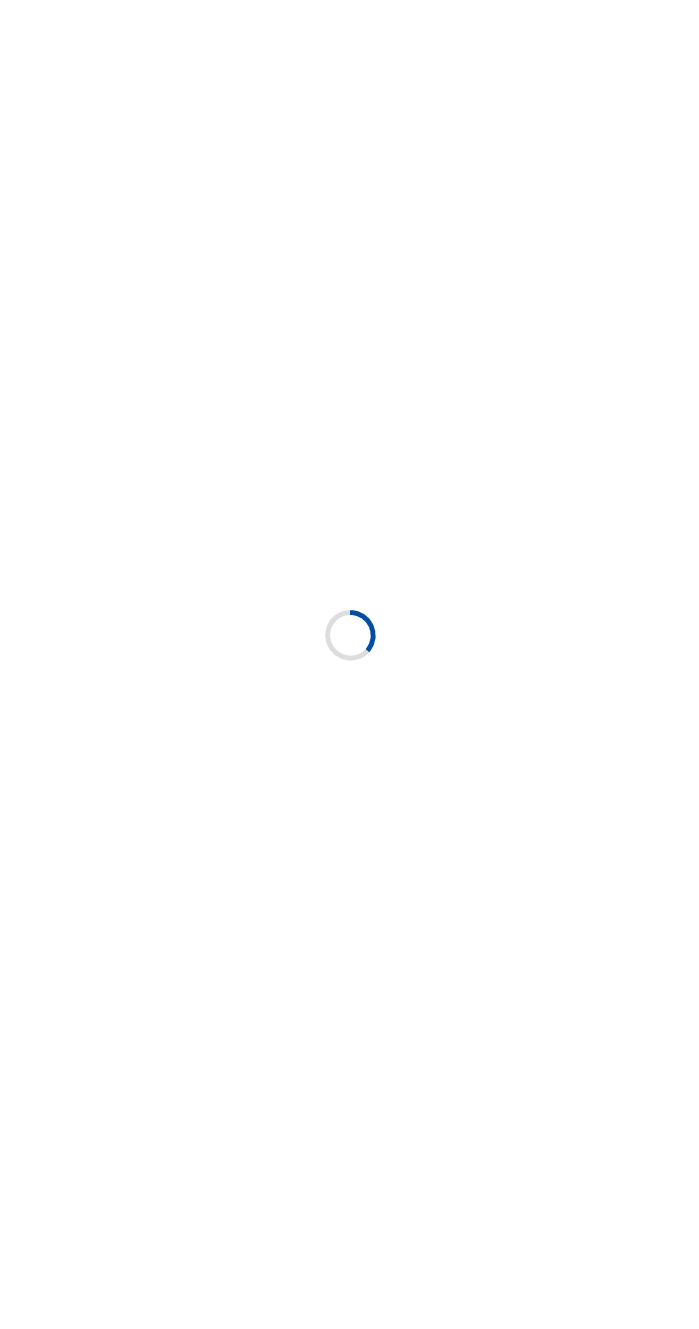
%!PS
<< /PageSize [699 1329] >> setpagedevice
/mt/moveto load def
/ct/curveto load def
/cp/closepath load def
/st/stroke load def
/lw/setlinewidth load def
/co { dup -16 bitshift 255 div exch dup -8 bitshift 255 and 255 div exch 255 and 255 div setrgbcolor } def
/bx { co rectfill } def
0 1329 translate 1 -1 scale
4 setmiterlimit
0 0 699 1329 16#FFFFFF bx
16#DDDDDD co
4.5 lw
350 612.5 mt 380.5 612.5 380.5 658 350.5 658 ct 328 658 319 629 337.5 616.5 ct 341 614 345 612.5 349.5 612.5 ct cp st
16#034EA0 co
350 612.5 mt 370 612.5 380.5 635.5 367.5 650.5 ct st
showpage
